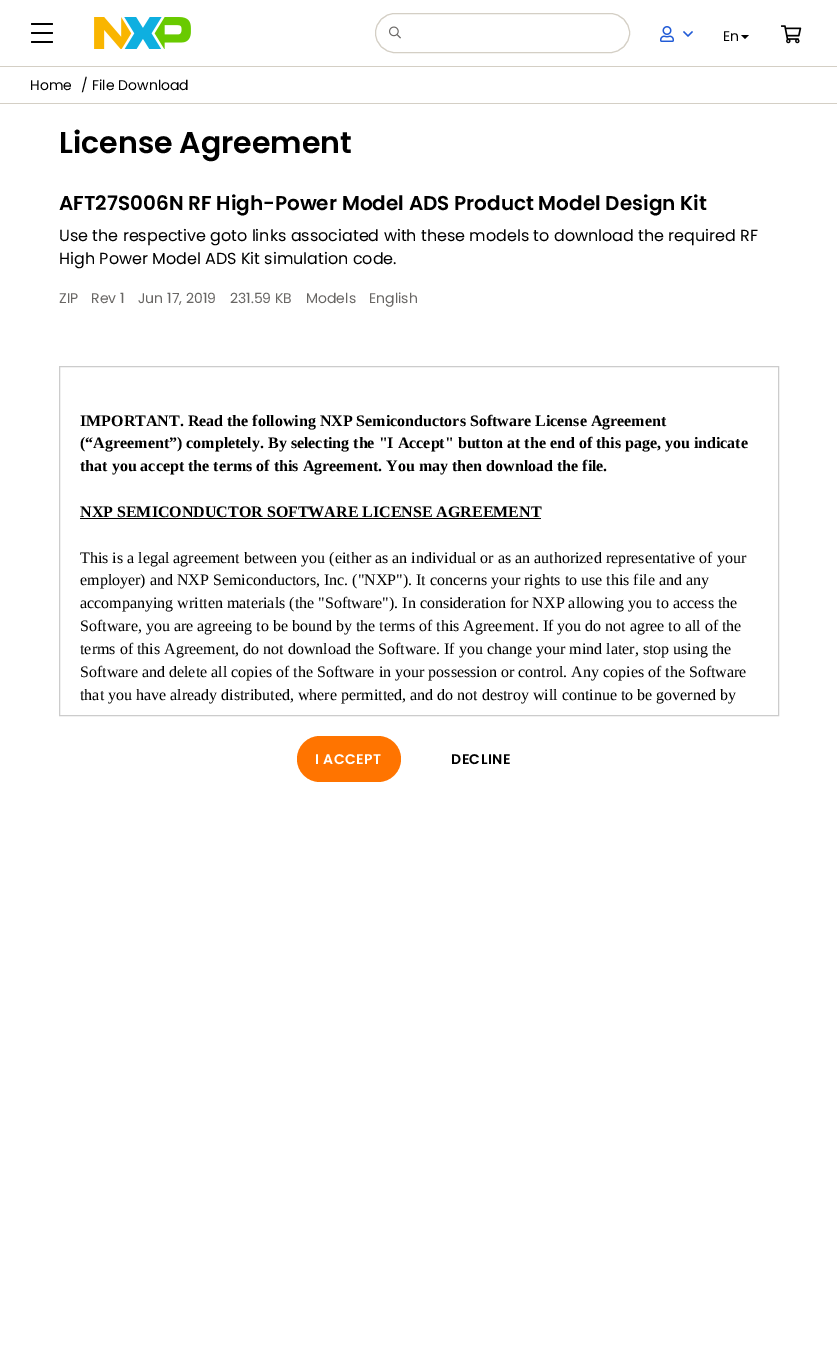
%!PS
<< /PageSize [837 1357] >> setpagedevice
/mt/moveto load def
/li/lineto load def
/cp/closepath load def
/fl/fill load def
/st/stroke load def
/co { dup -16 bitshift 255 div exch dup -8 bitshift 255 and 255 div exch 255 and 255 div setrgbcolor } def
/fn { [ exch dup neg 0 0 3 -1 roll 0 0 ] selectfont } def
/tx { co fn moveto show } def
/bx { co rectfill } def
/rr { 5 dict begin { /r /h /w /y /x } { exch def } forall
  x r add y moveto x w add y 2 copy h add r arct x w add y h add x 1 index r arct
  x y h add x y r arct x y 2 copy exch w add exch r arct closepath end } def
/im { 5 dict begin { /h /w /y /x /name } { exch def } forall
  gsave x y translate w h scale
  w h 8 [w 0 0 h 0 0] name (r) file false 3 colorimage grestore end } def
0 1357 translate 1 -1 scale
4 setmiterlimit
0 0 837 1357 16#FFFFFF bx
0 66 837 1 16#D4CFC5 bx
16#000000 co
31 23 22 2 1 rr fl
31 32 22 2 1 rr fl
31 41 22 2 1 rr fl
(media/1.raw) 94 17 97 32 im
16#D4CFC5 co
375.5 13.5 254 39 19.5 rr st
(media/2.raw) 389 26 12 13 im
(media/3.raw) 660 26 14 16 im
(media/4.raw) 683 31 10 6 im
16#000000 co
741 35 mt 749 35 li 745 39 li cp fl
(media/5.raw) 781 25 21 19 im
0 103 837 1 16#D4CFC5 bx
16#CCCCCC co
59.5 366.5 719 349 rectstroke
80 518 461 1 16#000000 bx
16#FF7400 co
297 736 104 46 23 rr fl
(En) 723 41 /Poppins-Regular 14 16#000000 tx
(Home) 30 90 /Poppins-Regular 14 16#000000 tx
(/) 81 90 /Poppins-Regular 14 16#000000 tx
(File Download) 92 90 /Poppins-Regular 14 16#000000 tx
(License Agreement) 59 153 /Poppins-SemiBold 30 16#000000 tx
(AFT27S006N RF High-Power Model ADS Product Model Design Kit) 59 210 /Poppins-SemiBold 20 16#000000 tx
(Use the respective goto links associated with these models to download the required RF) 59 241 /Poppins-Regular 16 16#000000 tx
(High Power Model ADS Kit simulation code.) 59 264 /Poppins-Regular 16 16#000000 tx
(ZIP) 59 303 /Poppins-Regular 14 16#686664 tx
(Rev 1) 91 303 /Poppins-Regular 14 16#686664 tx
(Jun 17, 2019) 138 303 /Poppins-Regular 14 16#686664 tx
(231.59 KB) 230 303 /Poppins-Regular 14 16#686664 tx
(Models) 306 303 /Poppins-Regular 14 16#686664 tx
(English) 369 303 /Poppins-Regular 14 16#686664 tx
(IMPORTANT. Read the following NXP Semiconductors Software License Agreement) 80 426 /LiberationSerif-Bold 16 16#000000 tx
(\(“Agreement”\) completely. By selecting the "I Accept" button at the end of this page, you indicate) 80 448 /LiberationSerif-Bold 16 16#000000 tx
(that you accept the terms of this Agreement. You may then download the file.) 80 471 /LiberationSerif-Bold 16 16#000000 tx
(NXP SEMICONDUCTOR SOFTWARE LICENSE AGREEMENT) 80 517 /LiberationSerif-Bold 16 16#000000 tx
(This is a legal agreement between you \(either as an individual or as an authorized representative of your) 80 563 /LiberationSerif-Regular 16 16#000000 tx
(employer\) and NXP Semiconductors, Inc. \("NXP"\). It concerns your rights to use this file and any) 80 585 /LiberationSerif-Regular 16 16#000000 tx
(accompanying written materials \(the "Software"\). In consideration for NXP allowing you to access the) 80 608 /LiberationSerif-Regular 16 16#000000 tx
(Software, you are agreeing to be bound by the terms of this Agreement. If you do not agree to all of the) 80 631 /LiberationSerif-Regular 16 16#000000 tx
(terms of this Agreement, do not download the Software. If you change your mind later, stop using the) 80 654 /LiberationSerif-Regular 16 16#000000 tx
(Software and delete all copies of the Software in your possession or control. Any copies of the Software) 80 677 /LiberationSerif-Regular 16 16#000000 tx
(that you have already distributed, where permitted, and do not destroy will continue to be governed by) 80 700 /LiberationSerif-Regular 16 16#000000 tx
/Poppins-SemiBold 14 fn
16#FFFFFF co
315 764 mt .5 0 (I ACCEPT) ashow
16#000000 co
451 764 mt .5 0 (DECLINE) ashow
showpage
